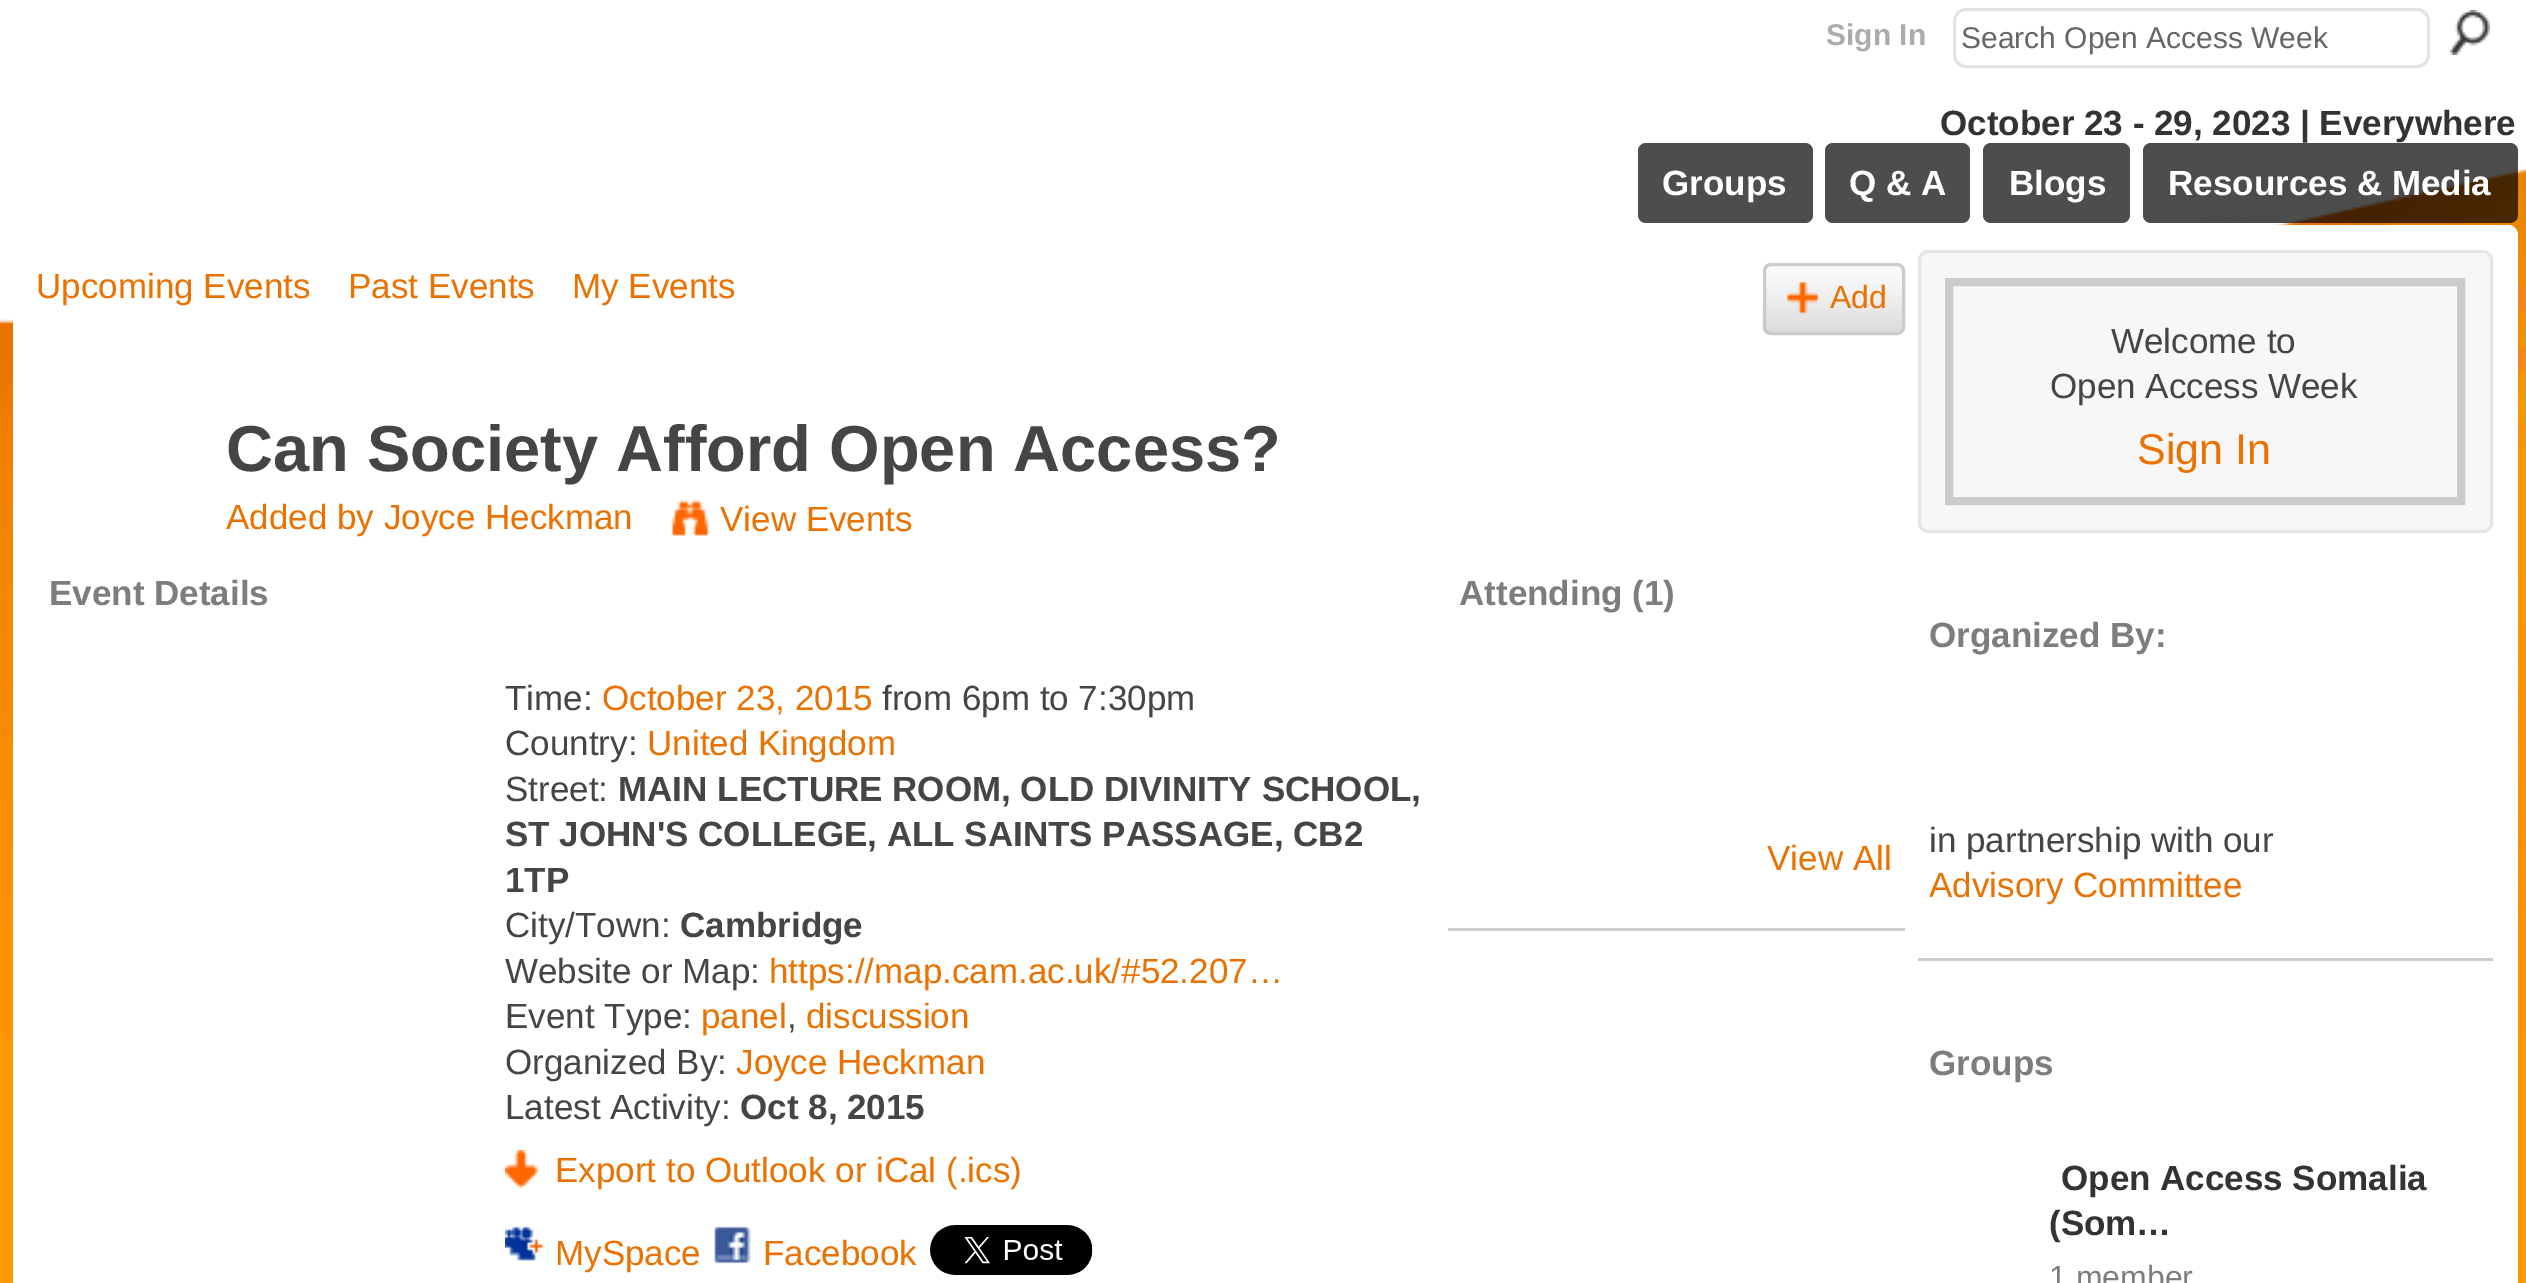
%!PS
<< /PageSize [2526 1283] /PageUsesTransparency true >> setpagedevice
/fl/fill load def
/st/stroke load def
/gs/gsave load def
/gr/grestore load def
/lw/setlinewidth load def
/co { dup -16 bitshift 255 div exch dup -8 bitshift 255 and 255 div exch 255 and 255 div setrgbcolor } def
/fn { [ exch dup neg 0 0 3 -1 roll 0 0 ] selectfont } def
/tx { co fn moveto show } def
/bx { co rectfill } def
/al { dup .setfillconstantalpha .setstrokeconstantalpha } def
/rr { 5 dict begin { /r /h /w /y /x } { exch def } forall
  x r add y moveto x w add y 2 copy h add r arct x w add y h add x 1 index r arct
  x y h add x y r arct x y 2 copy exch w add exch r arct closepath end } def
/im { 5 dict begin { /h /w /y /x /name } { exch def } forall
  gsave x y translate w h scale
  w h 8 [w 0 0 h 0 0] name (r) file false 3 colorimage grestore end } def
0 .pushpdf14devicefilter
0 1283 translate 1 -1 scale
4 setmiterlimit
0 0 2526 1283 16#FF9900 bx
(media/1.raw) 0 0 2526 1039 im
16#E3E3E3 co
3 lw
1954.5 9.5 474 57 11.5 rr st
(media/2.raw) 2450 10 40 45 im
16#4D4D4D co
1638 143 175 80 8 rr fl
1825 143 145 80 8 rr fl
1983 143 147 80 8 rr fl
0.7 al
16#000000 co
2143 143 375 80 8 rr fl
1 al
16#FFFFFF co
13 225 2505 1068 10 rr fl
(media/3.raw) 1762 267 143 68 im
16#CBCBCB co
1764.5 264.5 139 69 6.5 rr st
(media/4.raw) 1786 281 33 33 im
(media/5.raw) 671 499 38 37 im
(media/6.raw) 505 1150 34 39 im
(media/7.raw) 505 1226 39 35 im
(media/8.raw) 714 1226 37 38 im
(media/9.raw) 930 1225 163 50 im
1448 928 457 3 16#CCCCCC bx
16#F7F7F7 co
1919.5 251.5 572 280 8.5 rr gs fl gr
16#E5E5E5 co
st
16#CBCBCB co
8 lw
1949 282 512 219 rectstroke
1918 958 575 3 16#CCCCCC bx
(Sign In) 1826 45 /LiberationSans-Bold 30 16#ACACAC tx
(Search Open Access Week) 1961 48 /LiberationSans-Regular 30 16#666666 tx
(October 23 - 29, 2023 | Everywhere) 1940 135 /LiberationSans-Bold 35 16#333333 tx
(Groups) 1662 195 /LiberationSans-Bold 35 16#FFFFFF tx
(Q & A) 1849 195 /LiberationSans-Bold 35 16#FFFFFF tx
(Blogs) 2009 195 /LiberationSans-Bold 35 16#FFFFFF tx
(Resources & Media) 2168 195 /LiberationSans-Bold 35 16#FFFFFF tx
(Upcoming Events) 36 298 /LiberationSans-Regular 35 16#E97202 tx
(Past Events) 348 298 /LiberationSans-Regular 35 16#E97202 tx
(My Events) 572 298 /LiberationSans-Regular 35 16#E97202 tx
(Add) 1830 308 /LiberationSans-Regular 32 16#E97202 tx
(Can Society Afford Open Access?) 226 471 /LiberationSans-Bold 65 16#454545 tx
(Added by Joyce Heckman) 226 529 /LiberationSans-Regular 35 16#E97202 tx
(View Events) 720 531 /LiberationSans-Regular 35 16#E97202 tx
(Event Details) 49 605 /LiberationSans-Bold 35 16#7D7D7D tx
(Time:) 505 710 /LiberationSans-Regular 35 16#454545 tx
(October 23, 2015) 602 710 /LiberationSans-Regular 35 16#E97202 tx
(from 6pm to 7:30pm) 882 710 /LiberationSans-Regular 35 16#454545 tx
(Country:) 505 755 /LiberationSans-Regular 35 16#454545 tx
(United Kingdom) 647 755 /LiberationSans-Regular 35 16#E97202 tx
(Street:) 505 801 /LiberationSans-Regular 35 16#454545 tx
(MAIN LECTURE ROOM, OLD DIVINITY SCHOOL,) 618 801 /LiberationSans-Bold 35 16#454545 tx
(ST JOHN'S COLLEGE, ALL SAINTS PASSAGE, CB2) 505 846 /LiberationSans-Bold 35 16#454545 tx
(1TP) 505 892 /LiberationSans-Bold 35 16#454545 tx
(City/Town:) 505 937 /LiberationSans-Regular 35 16#454545 tx
(Cambridge) 680 937 /LiberationSans-Bold 35 16#454545 tx
(Website or Map:) 505 983 /LiberationSans-Regular 35 16#454545 tx
(https://map.cam.ac.uk/#52.207…) 769 983 /LiberationSans-Regular 35 16#E97202 tx
(Event Type:) 505 1028 /LiberationSans-Regular 35 16#454545 tx
(panel) 701 1028 /LiberationSans-Regular 35 16#E97202 tx
(,) 787 1028 /LiberationSans-Regular 35 16#454545 tx
(discussion) 806 1028 /LiberationSans-Regular 35 16#E97202 tx
(Organized By:) 505 1074 /LiberationSans-Regular 35 16#454545 tx
(Joyce Heckman) 736 1074 /LiberationSans-Regular 35 16#E97202 tx
(Latest Activity:) 505 1119 /LiberationSans-Regular 35 16#454545 tx
(Oct 8, 2015) 740 1119 /LiberationSans-Bold 35 16#454545 tx
(Export to Outlook or iCal \(.ics\)) 555 1182 /LiberationSans-Regular 35 16#E97202 tx
(MySpace) 555 1265 /LiberationSans-Regular 35 16#E97202 tx
(Facebook) 763 1265 /LiberationSans-Regular 35 16#E97202 tx
(Attending \(1\)) 1459 605 /LiberationSans-Bold 35 16#7D7D7D tx
(View All) 1767 870 /LiberationSans-Regular 35 16#E97202 tx
(Welcome to) 2111 353 /LiberationSans-Regular 35 16#454545 tx
(Open Access Week) 2050 398 /LiberationSans-Regular 35 16#454545 tx
(Sign In) 2137 464 /LiberationSans-Regular 43 16#E97202 tx
(Organized By:) 1929 647 /LiberationSans-Bold 35 16#7D7D7D tx
(in partnership with our) 1929 852 /LiberationSans-Regular 35 16#454545 tx
gs
1930 818 550 90 rectclip
(Advisory Committee) 1929 897 /LiberationSans-Regular 35 16#E97202 tx
gr
(Groups) 1929 1075 /LiberationSans-Bold 35 16#7D7D7D tx
(Open Access Somalia) 2061 1190 /LiberationSans-Bold 35 16#333333 tx
(\(Som…) 2049 1235 /LiberationSans-Bold 35 16#333333 tx
(1 member) 2049 1288 /LiberationSans-Regular 32 16#7D7D7D tx
.poppdf14devicefilter showpage
